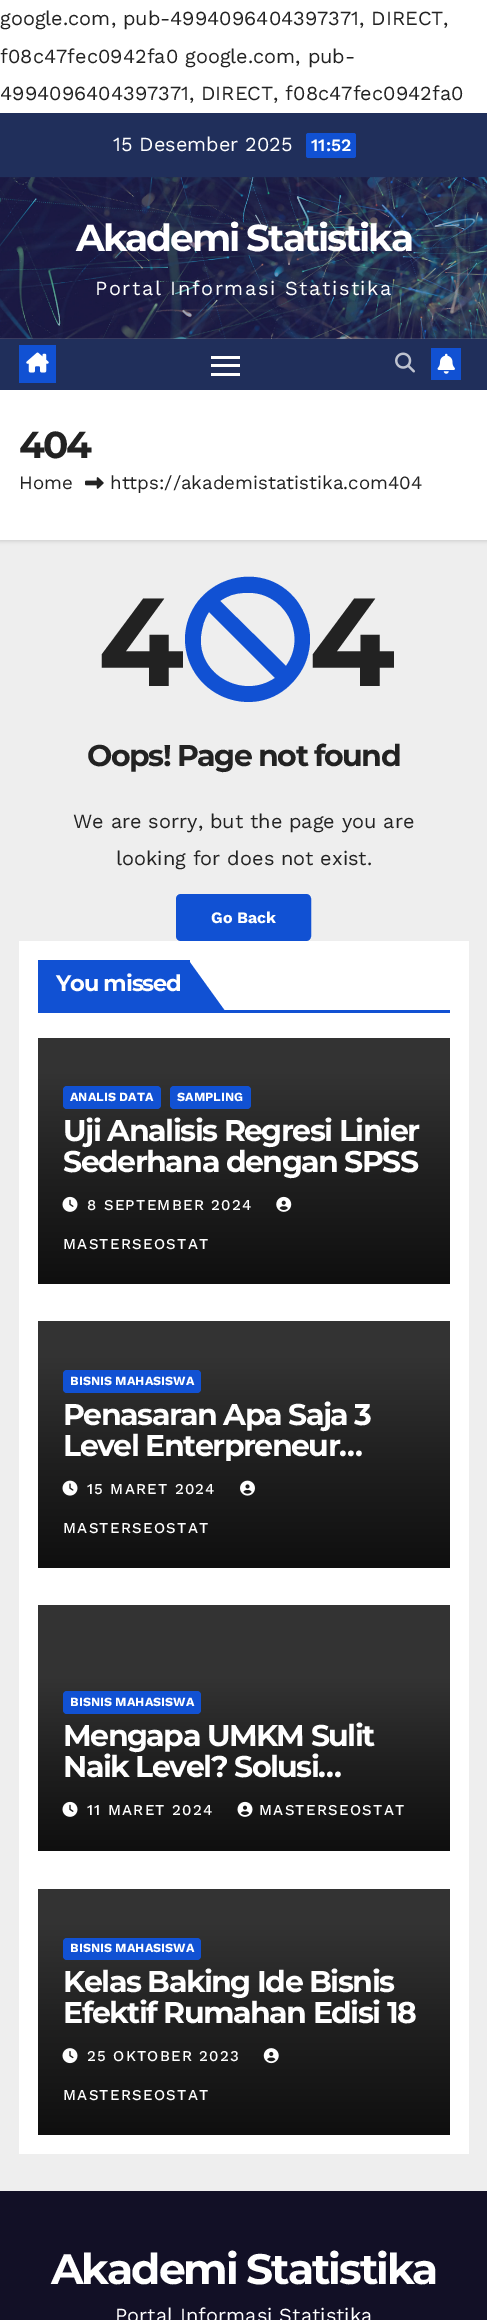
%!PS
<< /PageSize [487 2320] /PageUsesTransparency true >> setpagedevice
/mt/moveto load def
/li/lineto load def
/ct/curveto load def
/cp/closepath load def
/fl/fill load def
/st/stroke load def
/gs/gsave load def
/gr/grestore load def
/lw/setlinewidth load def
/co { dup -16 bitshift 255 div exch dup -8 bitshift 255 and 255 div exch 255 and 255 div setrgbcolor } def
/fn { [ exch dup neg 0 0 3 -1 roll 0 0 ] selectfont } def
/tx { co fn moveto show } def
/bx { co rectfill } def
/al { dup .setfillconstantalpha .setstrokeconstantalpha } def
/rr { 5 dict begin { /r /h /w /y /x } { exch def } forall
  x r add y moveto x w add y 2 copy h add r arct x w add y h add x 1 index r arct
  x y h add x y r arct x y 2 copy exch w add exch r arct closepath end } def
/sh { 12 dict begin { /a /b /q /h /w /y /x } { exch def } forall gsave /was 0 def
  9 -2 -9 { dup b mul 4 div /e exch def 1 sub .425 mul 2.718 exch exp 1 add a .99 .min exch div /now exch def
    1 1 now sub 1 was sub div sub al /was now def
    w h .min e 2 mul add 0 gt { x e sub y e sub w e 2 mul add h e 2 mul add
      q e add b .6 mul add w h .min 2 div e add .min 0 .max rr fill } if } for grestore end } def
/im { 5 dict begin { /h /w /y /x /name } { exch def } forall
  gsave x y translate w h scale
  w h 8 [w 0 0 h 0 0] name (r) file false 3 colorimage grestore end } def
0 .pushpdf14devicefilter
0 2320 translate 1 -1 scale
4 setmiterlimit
0 0 487 2320 16#FFFFFF bx
0 338 487 1853 16#EEEEEE bx
0 113 487 65 16#202F5B bx
16#1151D3 co
306 133 50 25 2.5 rr fl
(media/1.raw) 0 177 487 162 im
16#000000 co
0 391 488 150 0 2 .15 sh
0 339 487 51 16#202F5B bx
19 345 37 38 16#1151D3 bx
(media/2.raw) 26 352 23 21 im
211 356 29 3 16#FFFFFF bx
211 364 29 3 16#FFFFFF bx
211 373 29 3 16#FFFFFF bx
(media/3.raw) 395 352 20 21 im
431 348 30 32 16#1151D3 bx
(media/4.raw) 437 353 18 21 im
0 390 487 150 16#FFFFFF bx
(media/5.raw) 85 477 19 12 im
16#1151D3 co
275 678 mt 209 612 li 204 619 202 627 201 636 ct 197 675 243 700 275 678 ct cp 286 666 mt 309 634 283 589 244 593 ct 235 593 227 596 220 601 ct cp 185 639 mt 186 580 261 554 297 601 ct 305 612 310 626 310 639 ct 310 653 305 667 297 677 ct 261 725 186 699 185 639 ct cp fl
177.5 895.5 132 44 3.5 rr gs fl gr
3 lw
st
19 941 450 1213 16#FFFFFF bx
38 1010 412 3 16#1151D3 bx
38 960 152 50 16#1151D3 bx
225 1011 mt 189 1011 li 189 961 li cp fl
38 1038 412 36 16#333333 bx
gs 38 1074 mt 450 1074 li 450 1284 li 38 1284 li cp clip newpath
<< /ShadingType 2 /ColorSpace /DeviceRGB /Coords [244 1074 244 1284] /Extend [true true] /Function << /FunctionType 3 /Domain [0 1] /Functions [<< /FunctionType 2 /Domain [0 1] /C0 [.2 .2 .2] /C1 [.122 .122 .122] /N 1 >> << /FunctionType 2 /Domain [0 1] /C0 [.122 .122 .122] /C1 [.059 .059 .059] /N 1 >>] /Bounds [.5] /Encode [0 1 0 1] >> >> shfill gr
16#1151D3 co
63 1086 98 23 4 rr fl
170 1086 81 23 4 rr fl
(media/6.raw) 62 1196 16 16 im
(media/7.raw) 276 1196 16 16 im
38 1321 412 37 16#333333 bx
gs 38 1358 mt 450 1358 li 450 1568 li 38 1568 li cp clip newpath
<< /ShadingType 2 /ColorSpace /DeviceRGB /Coords [244 1358 244 1568] /Extend [true true] /Function << /FunctionType 3 /Domain [0 1] /Functions [<< /FunctionType 2 /Domain [0 1] /C0 [.2 .2 .2] /C1 [.122 .122 .122] /N 1 >> << /FunctionType 2 /Domain [0 1] /C0 [.122 .122 .122] /C1 [.059 .059 .059] /N 1 >>] /Bounds [.5] /Encode [0 1 0 1] >> >> shfill gr
16#1151D3 co
63 1370 138 23 4 rr fl
(media/8.raw) 62 1480 16 16 im
(media/9.raw) 240 1480 15 16 im
38 1605 412 74 16#333333 bx
gs 38 1679 mt 450 1679 li 450 1851 li 38 1851 li cp clip newpath
<< /ShadingType 2 /ColorSpace /DeviceRGB /Coords [244 1679 244 1851] /Extend [true true] /Function << /FunctionType 3 /Domain [0 1] /Functions [<< /FunctionType 2 /Domain [0 1] /C0 [.2 .2 .2] /C1 [.122 .122 .122] /N 1 >> << /FunctionType 2 /Domain [0 1] /C0 [.122 .122 .122] /C1 [.059 .059 .059] /N 1 >>] /Bounds [.5] /Encode [0 1 0 1] >> >> shfill gr
16#1151D3 co
63 1691 138 23 4 rr fl
(media/10.raw) 62 1801 16 16 im
(media/11.raw) 237 1801 16 16 im
38 1889 412 36 16#333333 bx
gs 38 1925 mt 450 1925 li 450 2135 li 38 2135 li cp clip newpath
<< /ShadingType 2 /ColorSpace /DeviceRGB /Coords [244 1925 244 2135] /Extend [true true] /Function << /FunctionType 3 /Domain [0 1] /Functions [<< /FunctionType 2 /Domain [0 1] /C0 [.2 .2 .2] /C1 [.122 .122 .122] /N 1 >> << /FunctionType 2 /Domain [0 1] /C0 [.122 .122 .122] /C1 [.059 .059 .059] /N 1 >>] /Bounds [.5] /Encode [0 1 0 1] >> >> shfill gr
16#1151D3 co
63 1938 138 22 4 rr fl
(media/12.raw) 62 2048 16 16 im
(media/13.raw) 263 2048 16 16 im
0 2191 487 129 16#121026 bx
(google.com, pub-4994096404397371, DIRECT,) 0 25 /WorkSans-Regular 20 16#222222 tx
(f08c47fec0942fa0 google.com, pub-) 0 63 /WorkSans-Regular 20 16#222222 tx
(4994096404397371, DIRECT, f08c47fec0942fa0) 0 100 /WorkSans-Regular 20 16#222222 tx
(15 Desember 2025) 113 151 /WorkSans-Regular 20 16#FFFFFF tx
(11:52) 311 151 /WorkSans-SemiBold 17.5 16#FFFFFF tx
/Montserrat-Bold 37.5 fn
76 251 mt -2.1 0 (Akademi Statistika) ashow
/WorkSans-Regular 20 fn
95 295 mt 1.5 0 (Portal Informasi Statistika) ashow
/Montserrat-Bold 37.5 fn
16#222222 co
19 458 mt -2 0 (404) ashow
(Home) 19 489 /WorkSans-Regular 18.75 16#222222 tx
(https://akademistatistika.com404) 110 489 /WorkSans-Regular 18.75 16#222222 tx
/Montserrat-Bold 125 fn
98 686 mt -6 0 (4) ashow
309 686 mt -6 0 (4) ashow
/Montserrat-Bold 30 fn
87 766 mt -1.5 0 (Oops! Page not found) ashow
(We are sorry, but the page you are) 73 828 /WorkSans-Regular 20 16#222222 tx
(looking for does not exist.) 116 865 /WorkSans-Regular 20 16#222222 tx
(Go Back) 211 923 /WorkSans-Bold 16 16#FFFFFF tx
/Montserrat-Bold 22.5 fn
56 991 mt -1.1 0 (You missed) ashow
(ANALIS DATA) 70 1101 /WorkSans-Bold 12.5 16#FFFFFF tx
(SAMPLING) 177 1101 /WorkSans-Bold 12.5 16#FFFFFF tx
/Montserrat-Bold 30 fn
63 1141 mt -1.5 0 (Uji Analisis Regresi Linier) ashow
63 1172 mt -1.5 0 (Sederhana dengan SPSS) ashow
/WorkSans-Medium 15 fn
87 1210 mt 1.25 0 (8 SEPTEMBER 2024) ashow
63 1249 mt 1.25 0 (MASTERSEOSTAT) ashow
(BISNIS MAHASISWA) 70 1385 /WorkSans-Bold 12.5 16#FFFFFF tx
/Montserrat-Bold 30 fn
63 1425 mt -1.5 0 (Penasaran Apa Saja 3) ashow
gs
63 1399 362 62 rectclip
63 1456 mt -1.5 0 (Level Enterpreneur…) ashow
gr
/WorkSans-Medium 15 fn
87 1494 mt 1.25 0 (15 MARET 2024) ashow
63 1533 mt 1.25 0 (MASTERSEOSTAT) ashow
(BISNIS MAHASISWA) 70 1706 /WorkSans-Bold 12.5 16#FFFFFF tx
/Montserrat-Bold 30 fn
63 1746 mt -1.5 0 (Mengapa UMKM Sulit) ashow
63 1777 mt -1.5 0 (Naik Level? Solusi…) ashow
/WorkSans-Medium 15 fn
87 1815 mt 1.25 0 (11 MARET 2024) ashow
259 1815 mt 1.25 0 (MASTERSEOSTAT) ashow
(BISNIS MAHASISWA) 70 1952 /WorkSans-Bold 12.5 16#FFFFFF tx
/Montserrat-Bold 30 fn
63 1992 mt -1.5 0 (Kelas Baking Ide Bisnis) ashow
63 2023 mt -1.5 0 (Efektif Rumahan Edisi 18) ashow
/WorkSans-Medium 15 fn
87 2061 mt 1.25 0 (25 OKTOBER 2023) ashow
63 2100 mt 1.25 0 (MASTERSEOSTAT) ashow
/Montserrat-Bold 42.5 fn
51 2284 mt -2.1 0 (Akademi Statistika) ashow
(Portal Informasi Statistika) 115 2322 /WorkSans-Regular 20 16#FFFFFF tx
.poppdf14devicefilter showpage
